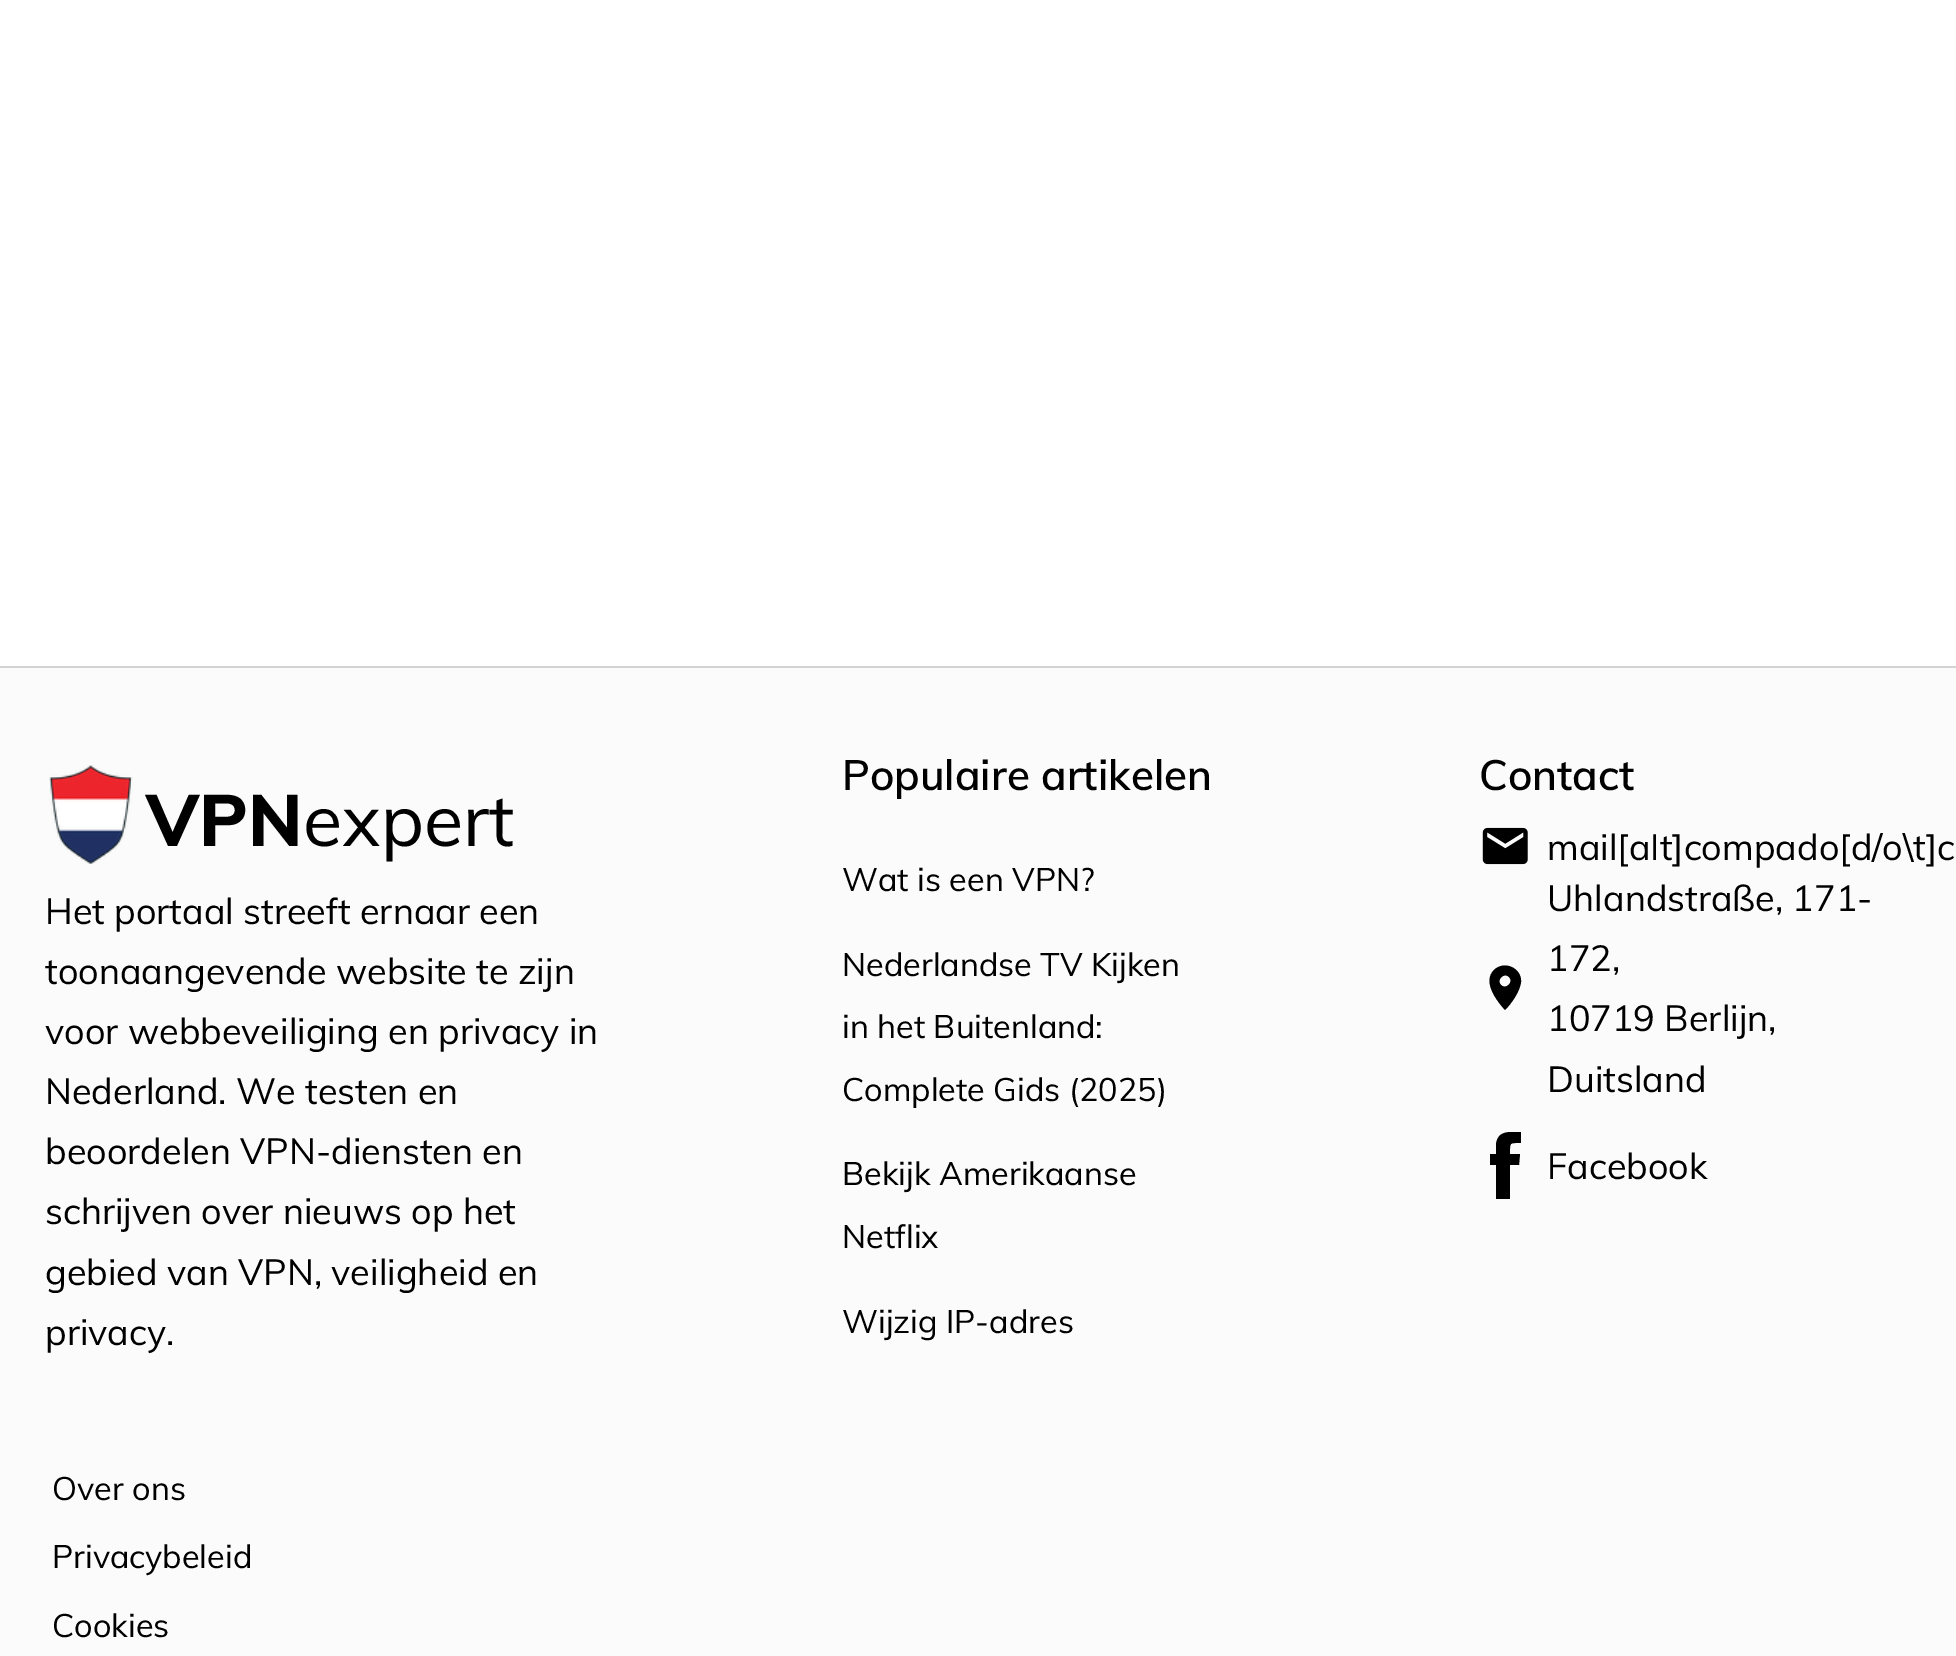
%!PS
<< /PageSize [1956 1656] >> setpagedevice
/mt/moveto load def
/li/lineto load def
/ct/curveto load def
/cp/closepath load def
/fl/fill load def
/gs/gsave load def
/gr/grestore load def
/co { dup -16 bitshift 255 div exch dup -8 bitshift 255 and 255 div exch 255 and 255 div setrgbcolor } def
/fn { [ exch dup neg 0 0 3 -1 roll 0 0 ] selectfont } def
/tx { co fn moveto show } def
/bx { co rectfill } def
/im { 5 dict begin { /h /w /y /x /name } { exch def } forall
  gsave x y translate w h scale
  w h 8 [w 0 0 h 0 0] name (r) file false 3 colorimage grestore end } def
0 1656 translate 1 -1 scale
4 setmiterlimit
0 0 1956 1656 16#FFFFFF bx
0 668 1956 988 16#FBFBFB bx
0 666 1956 2 16#D3D3D3 bx
(media/1.raw) 49 765 84 99 im
(media/2.raw) 1482 827 46 38 im
16#000000 co
1501 985 mt 1506 990 1514 982 1509 977 ct 1504 972 1496 980 1501 985 ct cp 1494 970 mt 1504 960 1522 968 1521 982 ct 1520 991 1512 1003 1505 1010 ct 1497 1001 1482 982 1494 970 ct cp fl
gs
1490 1132 31 67 rectclip
1519 1165 mt 1510 1165 li 1510 1199 li 1496 1199 li 1496 1165 li 1490 1165 li 1490 1154 li 1496 1154 li 1496 1144 li 1498 1130 1510 1132 1521 1132 ct 1521 1143 li 1509 1143 1510 1142 1510 1154 ct 1520 1154 li cp fl
gr
(VPN) 146 846 /Muli-ExtraBold 72 16#000000 tx
(expert) 303 846 /Muli-Regular 72 16#000000 tx
(Het portaal streeft ernaar een) 45 924 /Muli-Regular 36 16#000000 tx
(toonaangevende website te zijn) 45 984 /Muli-Regular 36 16#000000 tx
(voor webbeveiliging en privacy in) 45 1044 /Muli-Regular 36 16#000000 tx
(Nederland. We testen en) 45 1104 /Muli-Regular 36 16#000000 tx
(beoordelen VPN-diensten en) 45 1164 /Muli-Regular 36 16#000000 tx
(schrijven over nieuws op het) 45 1224 /Muli-Regular 36 16#000000 tx
(gebied van VPN, veiligheid en) 45 1285 /Muli-Regular 36 16#000000 tx
(privacy.) 45 1345 /Muli-Regular 36 16#000000 tx
(Populaire artikelen) 842 790 /Muli-SemiBold 42.1 16#000000 tx
(Wat is een VPN?) 842 891 /Muli-Regular 32.4 16#000000 tx
(Nederlandse TV Kijken) 842 976 /Muli-Regular 32.4 16#000000 tx
(in het Buitenland:) 842 1038 /Muli-Regular 32.4 16#000000 tx
(Complete Gids \(2025\)) 842 1101 /Muli-Regular 32.4 16#000000 tx
(Bekijk Amerikaanse) 842 1185 /Muli-Regular 32.4 16#000000 tx
(Netflix) 842 1248 /Muli-Regular 32.4 16#000000 tx
(Wijzig IP-adres) 842 1333 /Muli-Regular 32.4 16#000000 tx
(Contact) 1479 790 /Muli-SemiBold 42.1 16#000000 tx
(mail[aIt]compado[d/o\\t]c) 1547 860 /Muli-Regular 36 16#000000 tx
(Uhlandstraße, 171-) 1547 911 /Muli-Regular 36 16#000000 tx
(172,) 1547 971 /Muli-Regular 36 16#000000 tx
(10719 Berlijn,) 1547 1031 /Muli-Regular 36 16#000000 tx
(Duitsland) 1547 1092 /Muli-Regular 36 16#000000 tx
(Facebook) 1547 1179 /Muli-Regular 36 16#000000 tx
(Over ons) 52 1500 /Muli-Regular 32.4 16#000000 tx
(Privacybeleid) 52 1568 /Muli-Regular 32.4 16#000000 tx
(Cookies) 52 1637 /Muli-Regular 32.4 16#000000 tx
showpage
